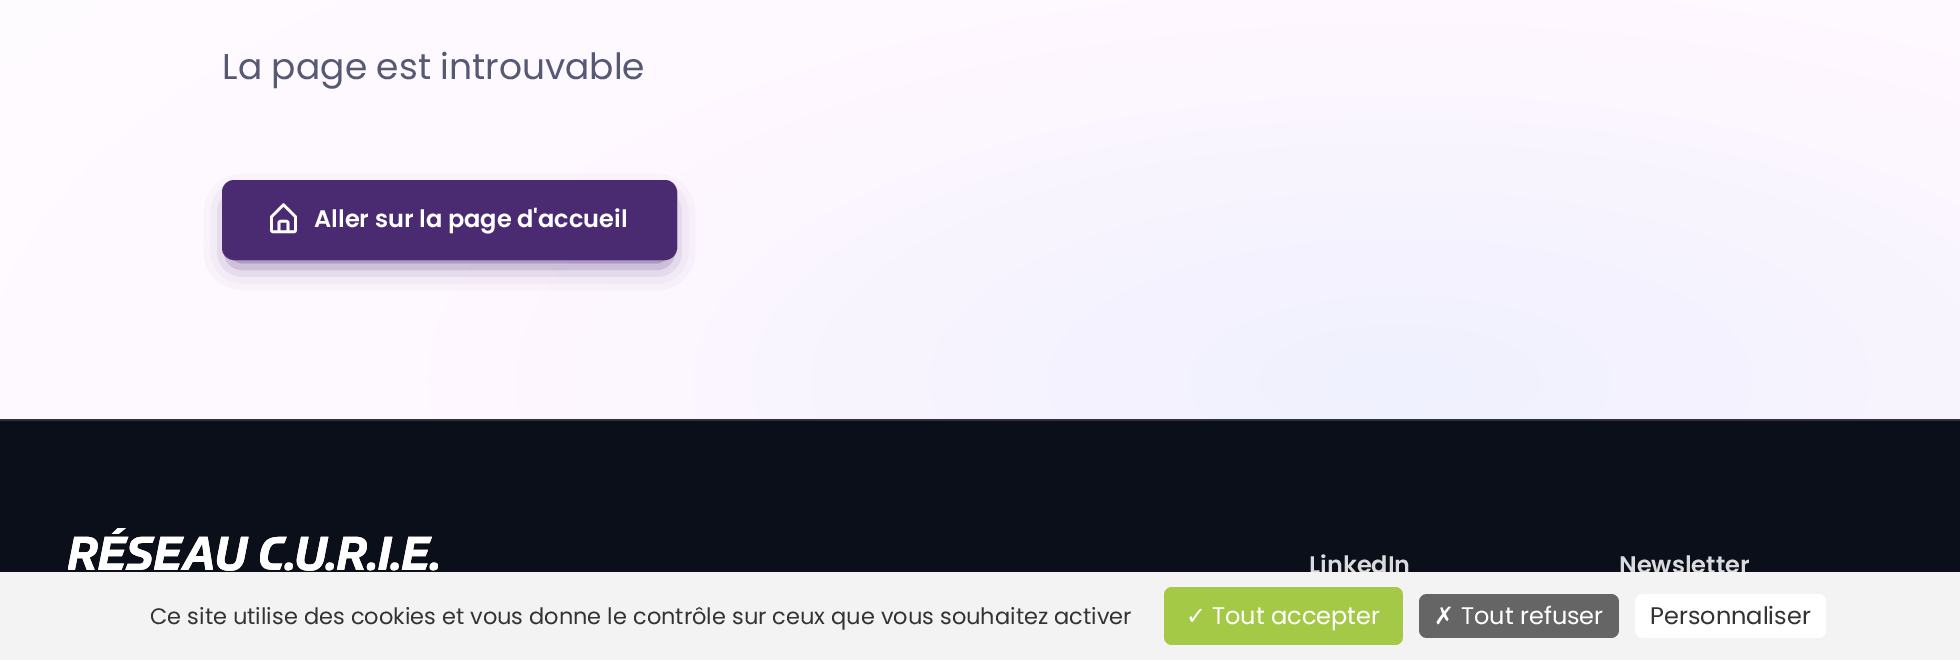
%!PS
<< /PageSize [1960 660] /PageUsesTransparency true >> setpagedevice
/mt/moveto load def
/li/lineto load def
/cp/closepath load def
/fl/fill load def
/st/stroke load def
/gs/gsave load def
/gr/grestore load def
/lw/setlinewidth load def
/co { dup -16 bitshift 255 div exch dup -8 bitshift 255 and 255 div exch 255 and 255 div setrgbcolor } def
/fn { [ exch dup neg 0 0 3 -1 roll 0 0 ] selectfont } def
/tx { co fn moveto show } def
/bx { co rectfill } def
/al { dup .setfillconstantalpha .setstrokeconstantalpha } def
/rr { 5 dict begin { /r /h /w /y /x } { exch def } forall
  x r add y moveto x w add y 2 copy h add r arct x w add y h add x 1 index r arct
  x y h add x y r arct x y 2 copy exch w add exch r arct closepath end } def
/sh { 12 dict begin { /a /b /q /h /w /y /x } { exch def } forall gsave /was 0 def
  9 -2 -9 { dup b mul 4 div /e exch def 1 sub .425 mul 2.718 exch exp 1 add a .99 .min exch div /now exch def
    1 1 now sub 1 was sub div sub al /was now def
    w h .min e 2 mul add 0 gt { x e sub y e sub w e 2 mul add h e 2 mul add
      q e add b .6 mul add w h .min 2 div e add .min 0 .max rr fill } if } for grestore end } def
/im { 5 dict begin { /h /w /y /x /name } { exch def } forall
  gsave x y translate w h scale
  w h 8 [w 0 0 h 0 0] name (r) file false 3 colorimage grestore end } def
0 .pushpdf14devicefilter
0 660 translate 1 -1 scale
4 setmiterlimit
0 0 1960 660 16#0B0F19 bx
gs 0 0 mt 1960 0 li 1960 419 li 0 419 li cp clip newpath 1400 381 translate 2829 1146 scale
<< /ShadingType 3 /ColorSpace /DeviceRGB /Coords [0 0 0 0 0 1] /Extend [true true] /Function << /FunctionType 3 /Domain [0 1] /Functions [<< /FunctionType 2 /Domain [0 1] /C0 [.941 .945 .996] /C1 [.996 .969 1] /N 1 >> << /FunctionType 2 /Domain [0 1] /C0 [.996 .969 1] /C1 [1 1 1] /N 1 >> << /FunctionType 2 /Domain [0 1] /C0 [1 1 1] /C1 [1 1 1] /N 1 >>] /Bounds [.32 .83] /Encode [0 1 0 1 0 1] >> >> shfill gr
16#4A2B72 co
234 204 431 56 0 13.5 .9 sh
223 181 453 78 11 rr gs fl gr
2 lw
st
(media/1.raw) 270 203 27 31 im
0 419 1960 2 16#2D3139 bx
(media/2.raw) 68 528 370 43 im
(La page est introuvable) 222 79 /Poppins-Regular 36 16#565973 tx
(Aller sur la page d'accueil) 314 227 /Poppins-SemiBold 24 16#FFFFFF tx
(LinkedIn) 1309 573 /Poppins-SemiBold 24 16#DADBDD tx
(Newsletter) 1619 573 /Poppins-SemiBold 24 16#DADBDD tx
0 572 1960 88 16#F3F3F3 bx
(Ce site utilise des cookies et vous donne le contrôle sur ceux que vous souhaitez activer) 150 624 /Poppins-Regular 22.5 16#333333 tx
16#A4C947 co
1164 587 239 58 8 rr fl
(✓) 1186 624 /DejaVuSans-Regular 24 16#FFFFFF tx
(Tout accepter) 1212 624 /Poppins-Regular 24 16#FFFFFF tx
16#656565 co
1419 594 200 44 8 rr fl
(✗) 1434 624 /DejaVuSans-Regular 24 16#FFFFFF tx
(Tout refuser) 1461 624 /Poppins-Regular 24 16#FFFFFF tx
1635 594 191 44 8 rr fl
(Personnaliser) 1650 624 /Poppins-Regular 24 16#333333 tx
.poppdf14devicefilter showpage
